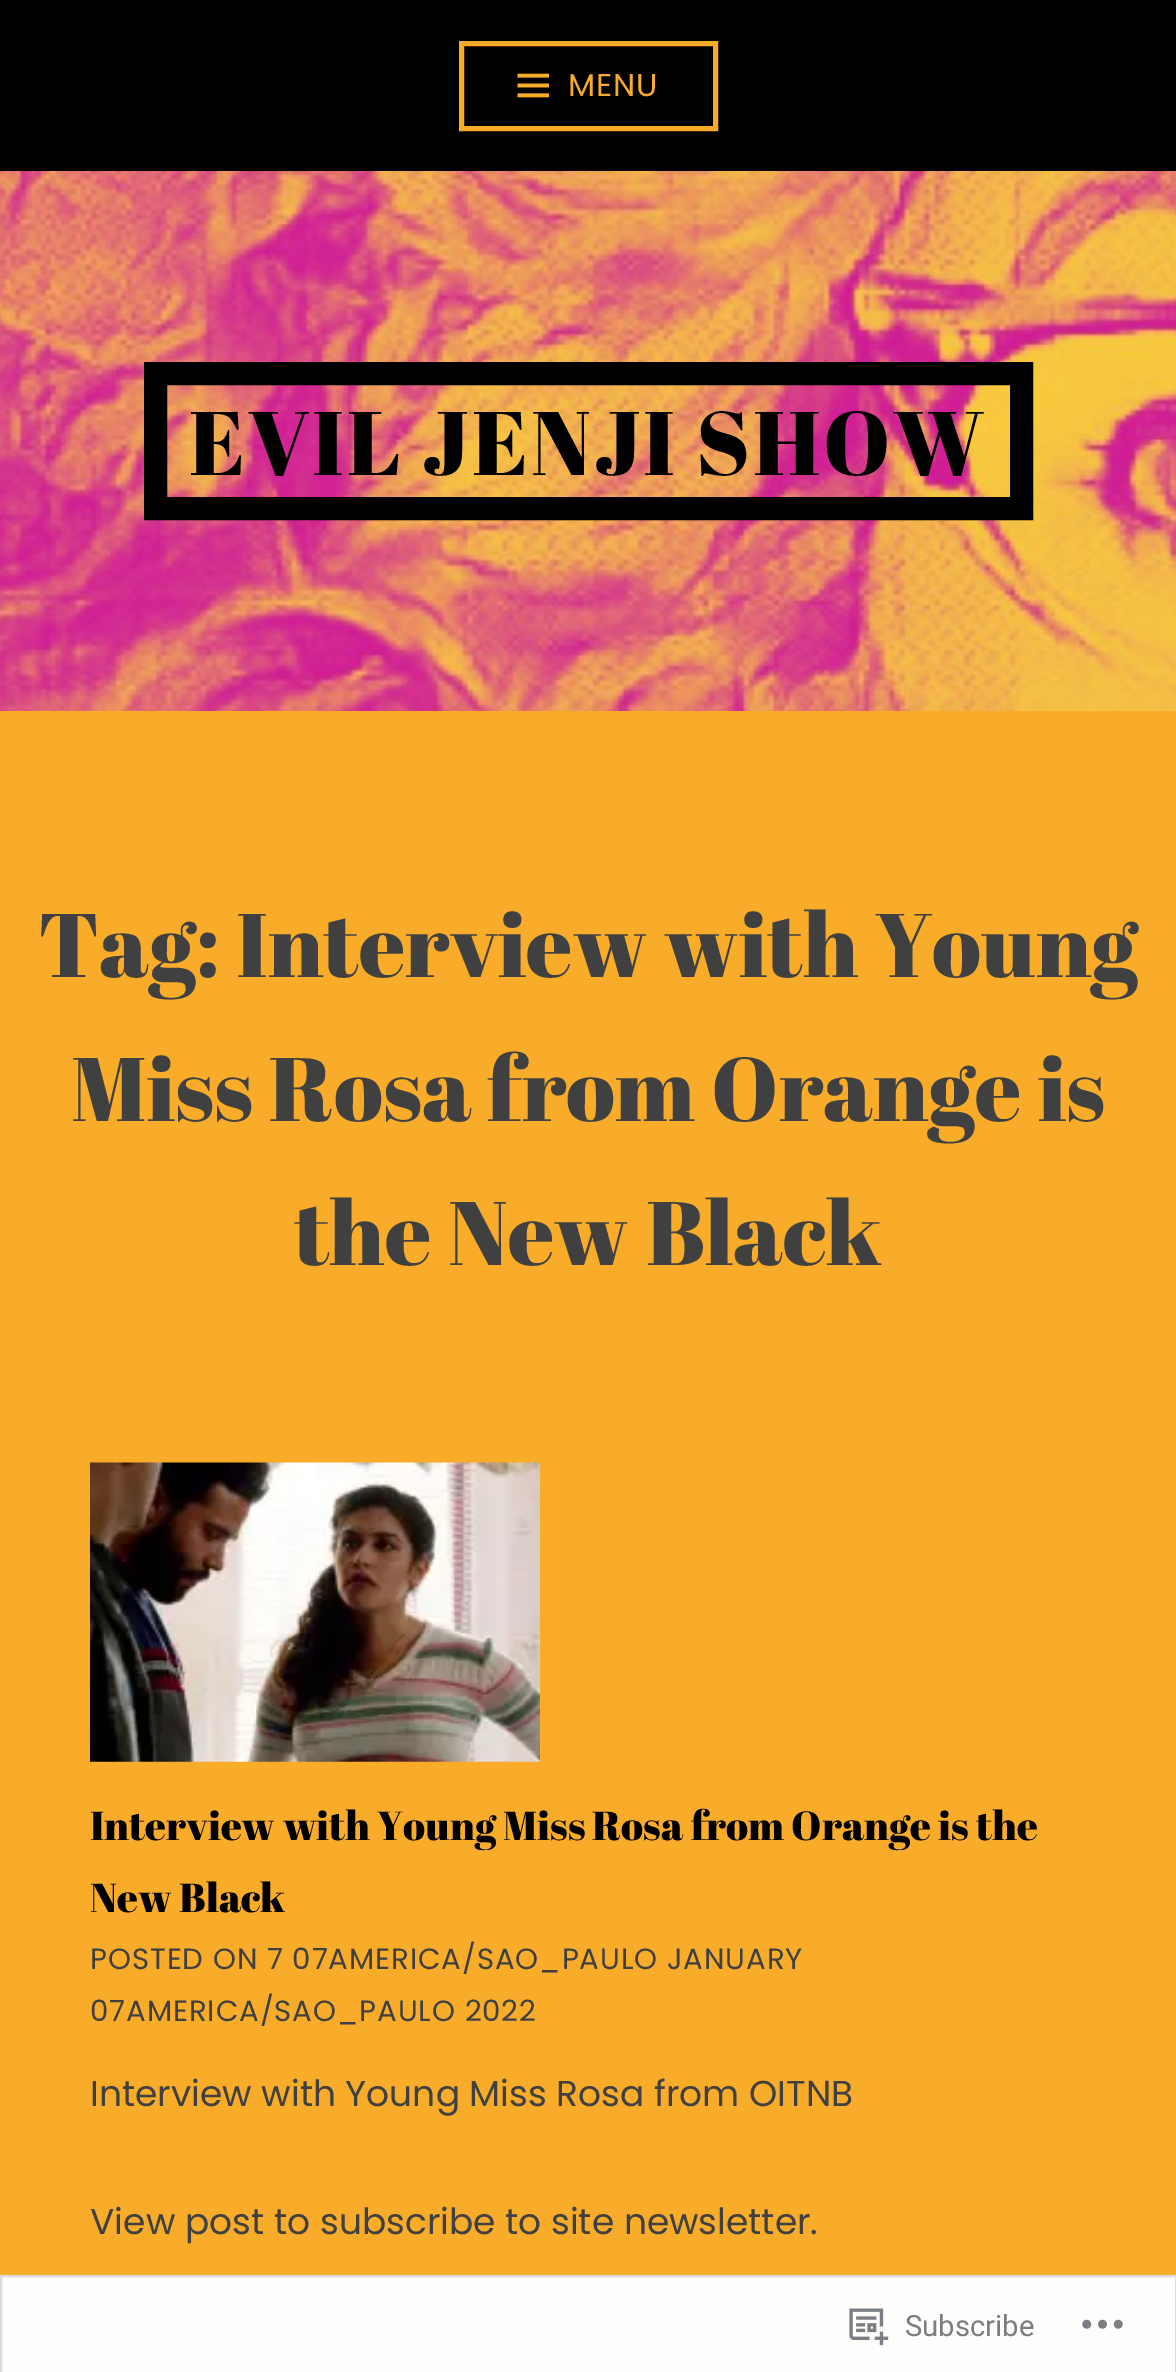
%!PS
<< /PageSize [1176 2372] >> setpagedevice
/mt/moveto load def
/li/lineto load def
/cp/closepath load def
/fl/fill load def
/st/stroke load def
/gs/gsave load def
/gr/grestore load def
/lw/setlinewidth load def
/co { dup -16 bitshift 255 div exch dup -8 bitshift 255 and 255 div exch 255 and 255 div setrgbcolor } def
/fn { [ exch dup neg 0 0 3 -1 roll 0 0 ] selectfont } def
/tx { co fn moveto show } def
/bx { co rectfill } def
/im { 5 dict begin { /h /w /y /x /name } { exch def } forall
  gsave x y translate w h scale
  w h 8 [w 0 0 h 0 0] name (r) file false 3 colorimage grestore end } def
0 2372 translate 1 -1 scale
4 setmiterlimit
0 0 1176 2372 16#F8AC2A bx
0 0 1176 171 16#000000 bx
16#F8AC2A co
5 lw
461.5 43.5 254 85 rectstroke
(media/1.raw) 517 73 32 25 im
(media/2.raw) 0 171 1176 540 im
16#000000 co
23 lw
155.5 373.5 866 135 rectstroke
(media/3.raw) 90 1462 450 300 im
16#FFFDFB co
1 2276 mt 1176 2276 li 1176 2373 li 1 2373 li cp gs fl gr
16#DDDBDA co
2 lw
st
(media/4.raw) 849 2308 40 38 im
(media/5.raw) 1082 2319 41 10 im
/Poppins-Regular 31.5 fn
16#F8AC2A co
568 96 mt 1 0 (MENU) ashow
/AbrilFatface-Regular 90 fn
16#000000 co
189 475 mt 2.75 0 (EVIL JENJI SHOW) ashow
(Tag: Interview with Young) 38 977 /AbrilFatface-Regular 90 16#404040 tx
(Miss Rosa from Orange is) 71 1121 /AbrilFatface-Regular 90 16#404040 tx
(the New Black) 294 1265 /AbrilFatface-Regular 90 16#404040 tx
(Interview with Young Miss Rosa from Orange is the) 90 1840 /AbrilFatface-Regular 40.5 16#000000 tx
(New Black) 90 1912 /AbrilFatface-Regular 40.5 16#000000 tx
/Poppins-Regular 29.25 fn
16#404040 co
90 1969 mt .9 0 (POSTED ON 7 07AMERICA/SAO_PAULO JANUARY) ashow
90 2021 mt .9 0 (07AMERICA/SAO_PAULO 2022) ashow
(Interview with Young Miss Rosa from OITNB) 90 2106 /Poppins-Regular 36 16#404040 tx
(View post) 90 2234 /Poppins-Regular 36 16#404040 tx
(to subscribe to site newsletter.) 274 2234 /Poppins-Regular 36 16#404040 tx
(Subscribe) 905 2336 /Roboto-Regular 29.25 16#7B7D80 tx
showpage
